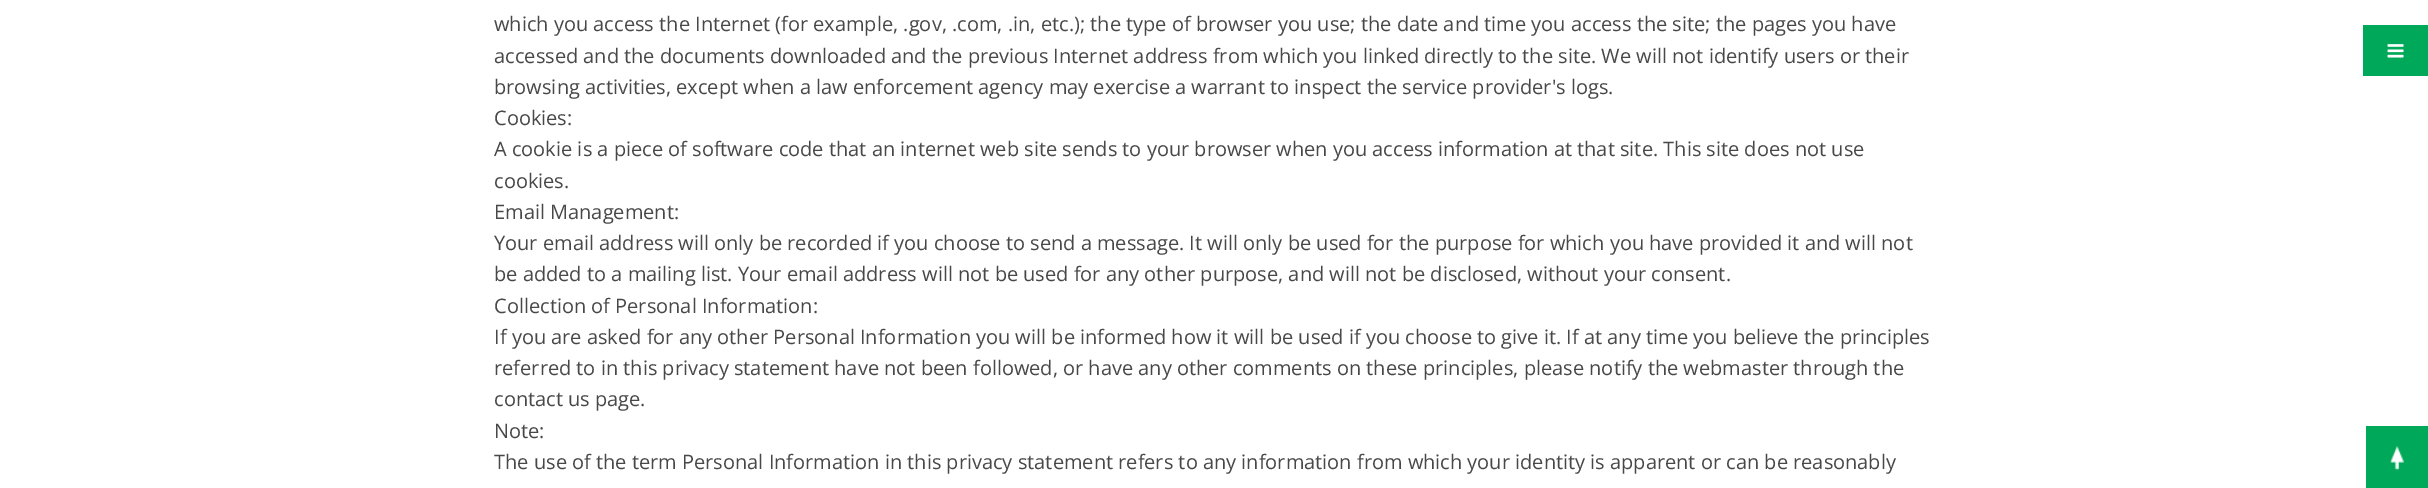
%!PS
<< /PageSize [2428 488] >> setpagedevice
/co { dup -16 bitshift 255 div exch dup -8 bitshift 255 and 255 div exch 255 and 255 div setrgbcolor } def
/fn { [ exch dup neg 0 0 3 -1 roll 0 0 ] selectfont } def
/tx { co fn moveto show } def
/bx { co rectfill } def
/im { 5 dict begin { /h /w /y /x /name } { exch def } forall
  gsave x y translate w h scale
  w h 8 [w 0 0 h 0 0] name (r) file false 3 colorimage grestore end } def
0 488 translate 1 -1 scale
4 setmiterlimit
0 0 2428 488 16#FFFFFF bx
2363 25 65 51 16#00A859 bx
(media/1.raw) 2387 44 17 14 im
2366 426 62 62 16#00A859 bx
(media/2.raw) 2390 446 14 25 im
(which you access the Internet \(for example, .gov, .com, .in, etc.\); the type of browser you use; the date and time you access the site; the pages you have) 494 31 /OpenSans-Regular 20 16#484848 tx
(accessed and the documents downloaded and the previous Internet address from which you linked directly to the site. We will not identify users or their) 494 63 /OpenSans-Regular 20 16#484848 tx
(browsing activities, except when a law enforcement agency may exercise a warrant to inspect the service provider's logs.) 494 94 /OpenSans-Regular 20 16#484848 tx
(Cookies:) 494 125 /OpenSans-Regular 20 16#484848 tx
(A cookie is a piece of software code that an internet web site sends to your browser when you access information at that site. This site does not use) 494 156 /OpenSans-Regular 20 16#484848 tx
(cookies.) 494 188 /OpenSans-Regular 20 16#484848 tx
(Email Management:) 494 219 /OpenSans-Regular 20 16#484848 tx
(Your email address will only be recorded if you choose to send a message. It will only be used for the purpose for which you have provided it and will not) 494 250 /OpenSans-Regular 20 16#484848 tx
(be added to a mailing list. Your email address will not be used for any other purpose, and will not be disclosed, without your consent.) 494 281 /OpenSans-Regular 20 16#484848 tx
(Collection of Personal Information:) 494 313 /OpenSans-Regular 20 16#484848 tx
(If you are asked for any other Personal Information you will be informed how it will be used if you choose to give it. If at any time you believe the principles) 494 344 /OpenSans-Regular 20 16#484848 tx
(referred to in this privacy statement have not been followed, or have any other comments on these principles, please notify the webmaster through the) 494 375 /OpenSans-Regular 20 16#484848 tx
(contact us page.) 494 406 /OpenSans-Regular 20 16#484848 tx
(Note:) 494 438 /OpenSans-Regular 20 16#484848 tx
(The use of the term Personal Information in this privacy statement refers to any information from which your identity is apparent or can be reasonably) 494 469 /OpenSans-Regular 20 16#484848 tx
showpage
